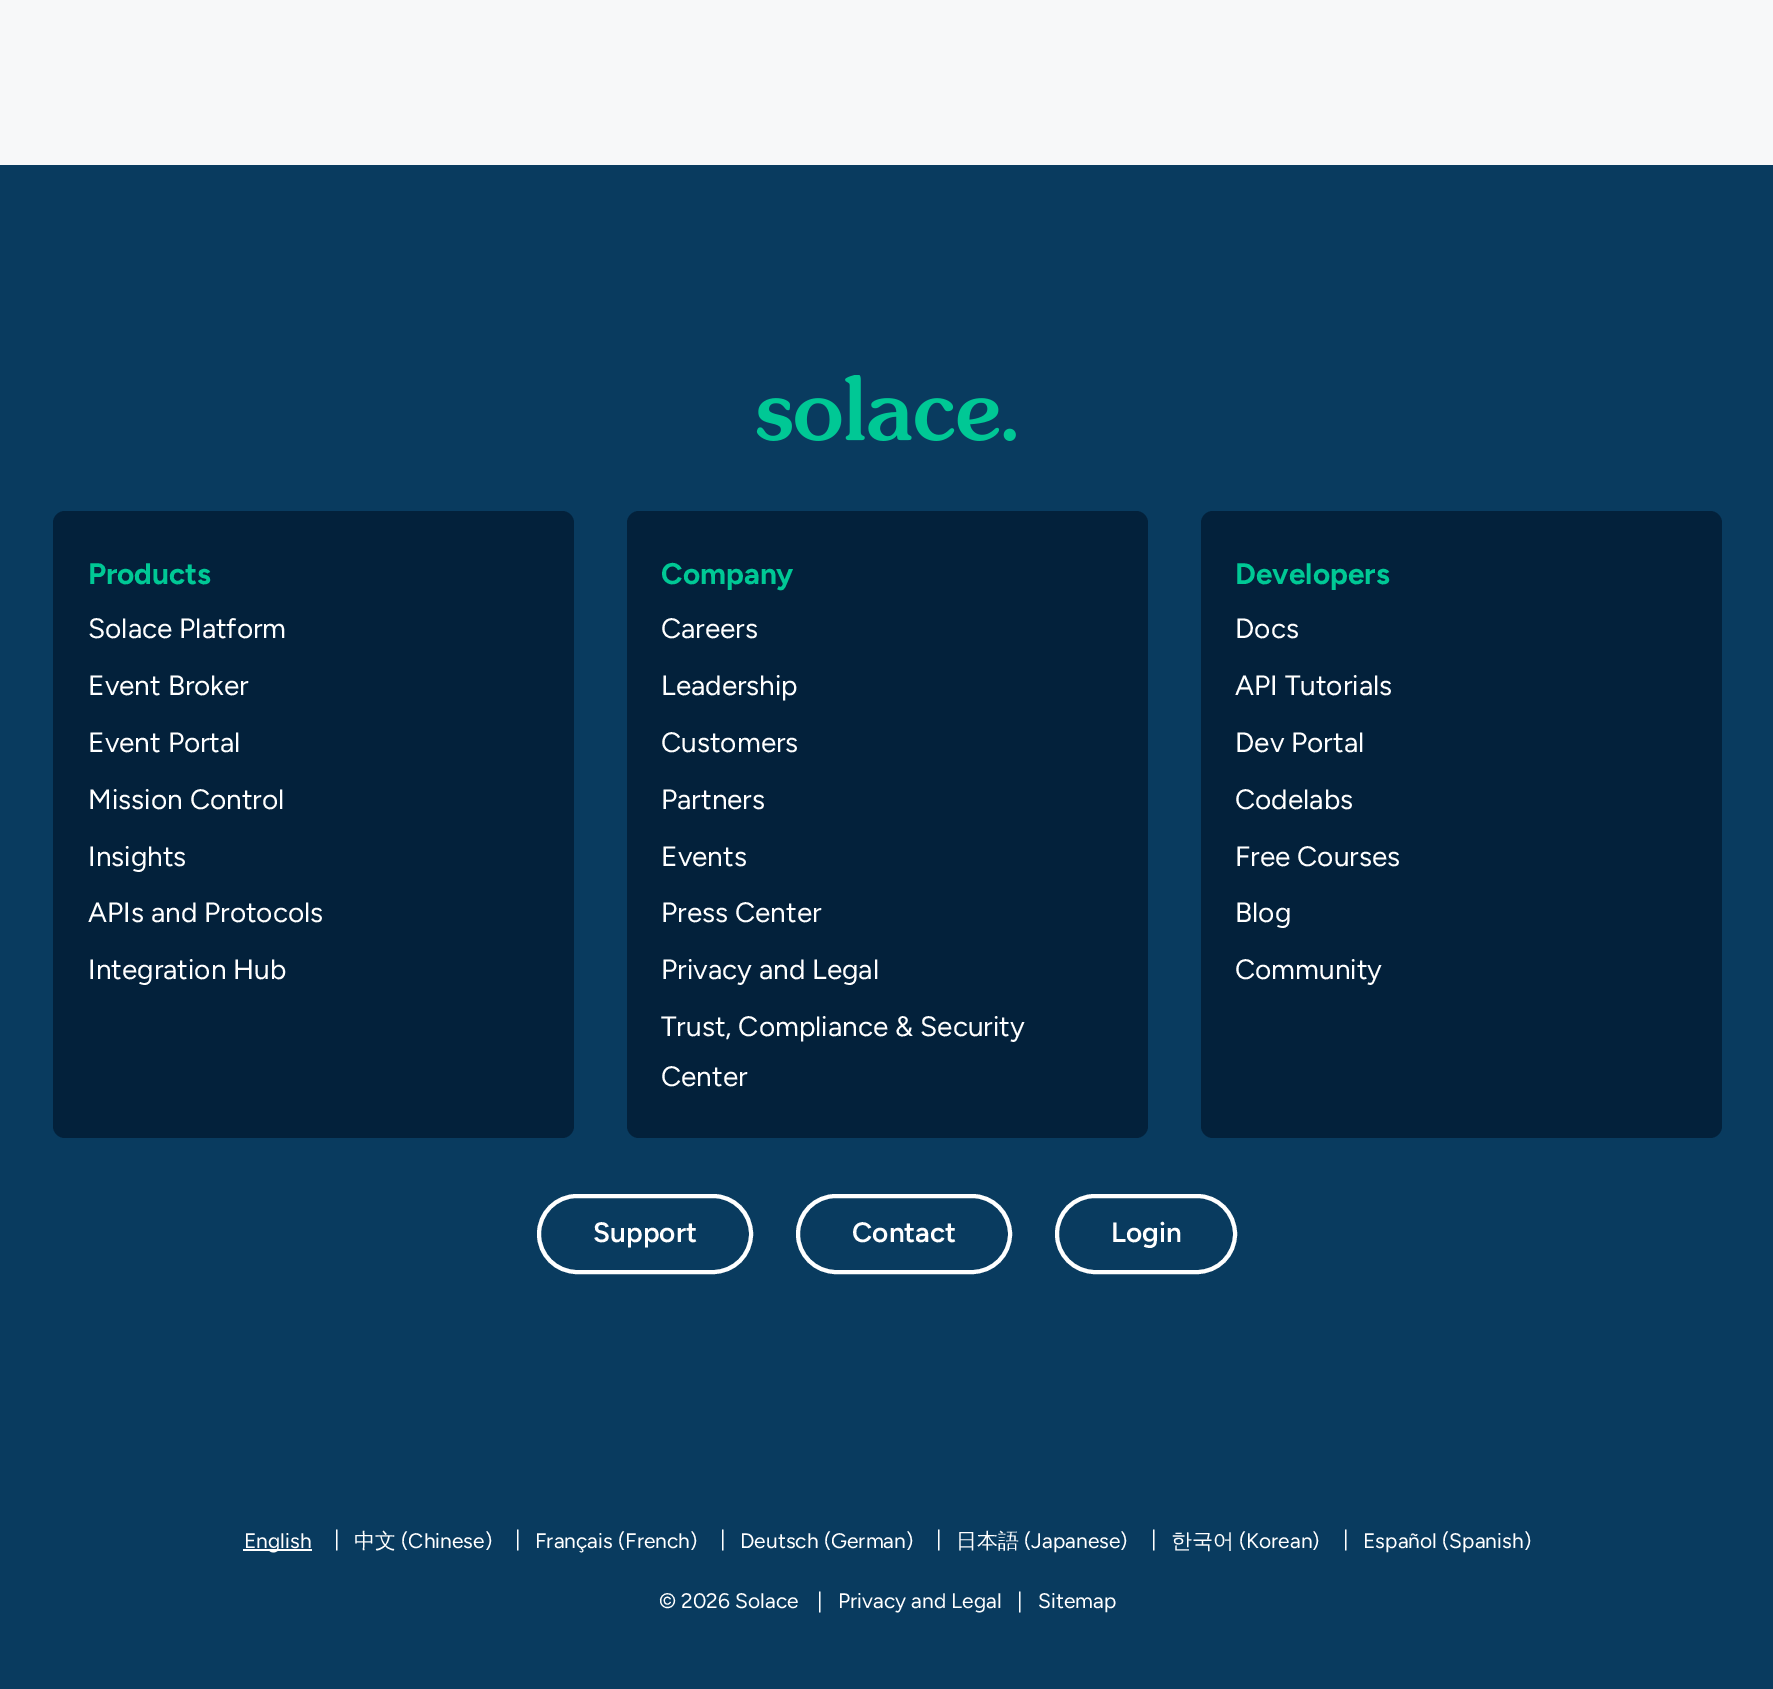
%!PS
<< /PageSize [1773 1689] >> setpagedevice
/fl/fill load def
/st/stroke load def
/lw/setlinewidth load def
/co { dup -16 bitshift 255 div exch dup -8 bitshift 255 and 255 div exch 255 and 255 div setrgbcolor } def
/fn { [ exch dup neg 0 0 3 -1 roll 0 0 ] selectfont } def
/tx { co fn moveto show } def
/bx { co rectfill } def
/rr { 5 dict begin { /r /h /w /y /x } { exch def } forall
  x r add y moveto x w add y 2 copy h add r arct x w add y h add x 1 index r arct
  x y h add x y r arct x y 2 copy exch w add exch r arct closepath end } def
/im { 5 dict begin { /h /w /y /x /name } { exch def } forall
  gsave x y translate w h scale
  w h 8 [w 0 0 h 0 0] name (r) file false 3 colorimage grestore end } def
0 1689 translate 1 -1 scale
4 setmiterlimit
0 0 1773 1689 16#F7F8F9 bx
0 165 1773 1524 16#093B5F bx
(media/1.raw) 756 375 260 66 im
16#03213B co
53 511 521 627 12 rr fl
627 511 521 627 12 rr fl
1201 511 521 627 12 rr fl
16#FFFFFF co
4 lw
539 1196 212 76 38 rr st
798 1196 212 76 38 rr st
1057 1196 178 76 38 rr st
243 1549 69 2 16#FFFFFF bx
(Products) 88 584 /Figtree-Bold 29.75 16#00C895 tx
(Solace Platform) 88 638 /Figtree-Regular 28 16#FFFFFF tx
(Event Broker) 88 695 /Figtree-Regular 28 16#FFFFFF tx
(Event Portal) 88 752 /Figtree-Regular 28 16#FFFFFF tx
(Mission Control) 88 809 /Figtree-Regular 28 16#FFFFFF tx
(Insights) 88 866 /Figtree-Regular 28 16#FFFFFF tx
(APIs and Protocols) 88 922 /Figtree-Regular 28 16#FFFFFF tx
(Integration Hub) 88 979 /Figtree-Regular 28 16#FFFFFF tx
(Company) 661 584 /Figtree-Bold 29.75 16#00C895 tx
(Careers) 661 638 /Figtree-Regular 28 16#FFFFFF tx
(Leadership) 661 695 /Figtree-Regular 28 16#FFFFFF tx
(Customers) 661 752 /Figtree-Regular 28 16#FFFFFF tx
(Partners) 661 809 /Figtree-Regular 28 16#FFFFFF tx
(Events) 661 866 /Figtree-Regular 28 16#FFFFFF tx
(Press Center) 661 922 /Figtree-Regular 28 16#FFFFFF tx
(Privacy and Legal) 661 979 /Figtree-Regular 28 16#FFFFFF tx
(Trust, Compliance & Security) 661 1036 /Figtree-Regular 28 16#FFFFFF tx
(Center) 661 1086 /Figtree-Regular 28 16#FFFFFF tx
(Developers) 1235 584 /Figtree-Bold 29.75 16#00C895 tx
(Docs) 1235 638 /Figtree-Regular 28 16#FFFFFF tx
(API Tutorials) 1235 695 /Figtree-Regular 28 16#FFFFFF tx
(Dev Portal) 1235 752 /Figtree-Regular 28 16#FFFFFF tx
(Codelabs) 1235 809 /Figtree-Regular 28 16#FFFFFF tx
(Free Courses) 1235 866 /Figtree-Regular 28 16#FFFFFF tx
(Blog) 1235 922 /Figtree-Regular 28 16#FFFFFF tx
(Community) 1235 979 /Figtree-Regular 28 16#FFFFFF tx
(Support) 593 1242 /Figtree-SemiBold 28 16#FFFFFF tx
(Contact) 852 1242 /Figtree-SemiBold 28 16#FFFFFF tx
(Login) 1111 1242 /Figtree-SemiBold 28 16#FFFFFF tx
(English) 244 1548 /Figtree-Regular 21 16#FFFFFF tx
(|) 334 1546 /Figtree-Regular 21 16#FFFFFF tx
(中文) 354 1548 /WenQuanYiZenHei-Medium 21 16#FFFFFF tx
(\(Chinese\)) 401 1548 /Figtree-Regular 21 16#FFFFFF tx
(|) 515 1546 /Figtree-Regular 21 16#FFFFFF tx
(Français \(French\)) 535 1548 /Figtree-Regular 21 16#FFFFFF tx
(|) 720 1546 /Figtree-Regular 21 16#FFFFFF tx
(Deutsch \(German\)) 740 1548 /Figtree-Regular 21 16#FFFFFF tx
(|) 936 1546 /Figtree-Regular 21 16#FFFFFF tx
(日本語) 956 1548 /WenQuanYiZenHei-Medium 21 16#FFFFFF tx
(\(Japanese\)) 1024 1548 /Figtree-Regular 21 16#FFFFFF tx
(|) 1151 1546 /Figtree-Regular 21 16#FFFFFF tx
(한국어) 1171 1548 /WenQuanYiZenHei-Medium 21 16#FFFFFF tx
(\(Korean\)) 1239 1548 /Figtree-Regular 21 16#FFFFFF tx
(|) 1343 1546 /Figtree-Regular 21 16#FFFFFF tx
(Español \(Spanish\)) 1363 1548 /Figtree-Regular 21 16#FFFFFF tx
(© 2026 Solace) 659 1608 /Figtree-Regular 21 16#FFFFFF tx
(|) 817 1608 /Figtree-Regular 21 16#FFFFFF tx
(Privacy and Legal) 838 1608 /Figtree-Regular 21 16#FFFFFF tx
(|) 1017 1608 /Figtree-Regular 21 16#FFFFFF tx
(Sitemap) 1038 1608 /Figtree-Regular 21 16#FFFFFF tx
showpage
